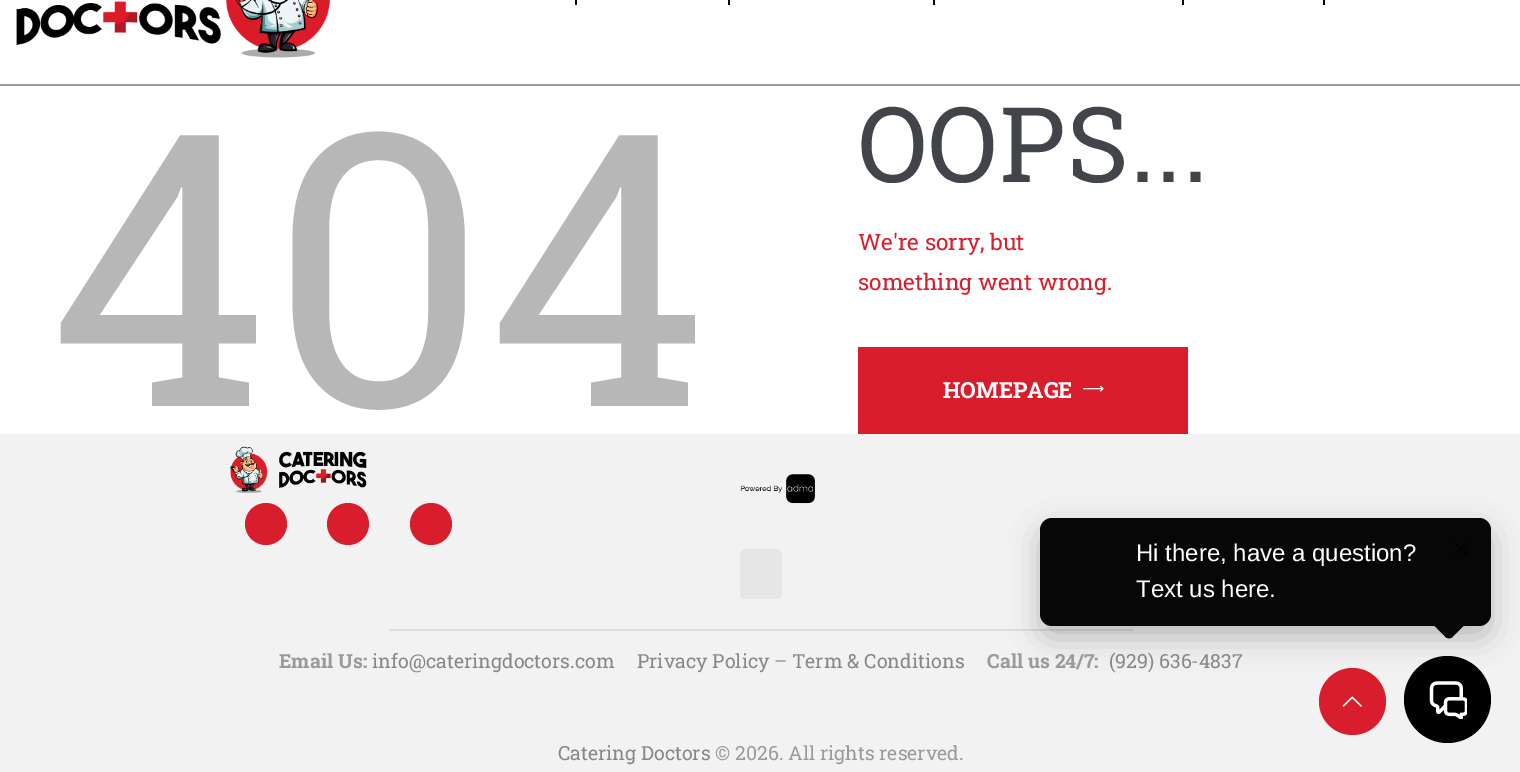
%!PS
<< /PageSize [1520 772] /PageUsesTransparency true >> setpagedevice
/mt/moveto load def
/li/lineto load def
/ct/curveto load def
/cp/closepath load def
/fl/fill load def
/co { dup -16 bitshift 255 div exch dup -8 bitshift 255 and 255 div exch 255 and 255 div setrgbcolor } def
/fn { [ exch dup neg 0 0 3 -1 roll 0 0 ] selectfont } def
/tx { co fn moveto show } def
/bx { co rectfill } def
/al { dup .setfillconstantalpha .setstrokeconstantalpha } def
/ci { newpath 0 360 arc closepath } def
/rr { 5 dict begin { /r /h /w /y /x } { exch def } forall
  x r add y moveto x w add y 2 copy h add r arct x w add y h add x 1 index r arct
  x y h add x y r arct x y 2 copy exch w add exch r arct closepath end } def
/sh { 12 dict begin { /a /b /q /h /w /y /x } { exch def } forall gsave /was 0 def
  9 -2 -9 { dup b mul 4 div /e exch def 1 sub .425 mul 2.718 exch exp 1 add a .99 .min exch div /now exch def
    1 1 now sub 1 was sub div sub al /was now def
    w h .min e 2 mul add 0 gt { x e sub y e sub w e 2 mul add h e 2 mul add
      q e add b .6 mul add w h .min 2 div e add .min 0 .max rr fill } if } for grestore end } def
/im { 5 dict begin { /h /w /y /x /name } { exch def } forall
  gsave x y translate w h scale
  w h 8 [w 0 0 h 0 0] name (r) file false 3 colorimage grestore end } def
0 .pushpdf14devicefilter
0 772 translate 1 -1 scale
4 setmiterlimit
0 0 1520 772 16#FFFFFF bx
0 84 1520 2 16#9A9A9A bx
(media/1.raw) 16 0 315 58 im
575 0 2 5 16#000000 bx
728 0 2 5 16#000000 bx
933 0 2 5 16#000000 bx
1182 0 2 5 16#000000 bx
1323 0 2 5 16#000000 bx
858 347 330 87 16#D81D2C bx
(media/2.raw) 1083 385 21 7 im
0 434 1520 338 16#F2F2F2 bx
(media/3.raw) 230 446 137 47 im
(media/4.raw) 740 474 75 30 im
16#D81D2C co
266 524 21 ci fl
348 524 21 ci fl
431 524 21 ci fl
16#E6E6E6 co
740 549 42 50 5 rr fl
389 629 744 2 16#DDDDDD bx
16#000000 co
1447.5 699.5 43.5 ci fl
(media/7.raw) 1429 681 38 38 im
1040 530 451 108 12 15 .24 sh
16#D81D2C co
1352.5 701.5 33.5 ci fl
(media/5.raw) 1342 696 20 11 im
16#070707 co
1040 518 451 108 12 rr fl
1453 602.5 mt 1466 615.5 li 1468.5 617.5 1468.5 621.5 1466 623.5 ct 1453 636.5 li 1451 639 1447 639 1445 636.5 ct 1432 623.5 li 1429.5 621.5 1429.5 617.5 1432 615.5 ct 1445 602.5 li 1447 600 1451 600 1453 602.5 ct cp fl
(media/6.raw) 1454 542 14 14 im
(404) 49 406 /RobotoSlab-Regular 382 16#B7B7B7 tx
/RobotoSlab-Regular 104.5 fn
16#414549 co
858 182 mt 1.5 0 (OOPS...) ashow
(We're sorry, but) 858 250 /RobotoSlab-Regular 22.5 16#D81D2C tx
(something went wrong.) 858 290 /RobotoSlab-Regular 22.5 16#D81D2C tx
(HOMEPAGE) 943 398 /RobotoSlab-Bold 22.25 16#FFFFFF tx
(Email Us:) 279 668 /RobotoSlab-Bold 19.5 16#9A9A9A tx
(info@cateringdoctors.com) 372 668 /RobotoSlab-Regular 19.5 16#858789 tx
(Privacy Policy) 637 668 /RobotoSlab-Regular 19.5 16#858789 tx
(–) 774 668 /RobotoSlab-Regular 19.5 16#9A9A9A tx
(Term & Conditions) 792 668 /RobotoSlab-Regular 19.5 16#858789 tx
(Call us 24/7:) 987 668 /RobotoSlab-Bold 19.5 16#9A9A9A tx
(\(929\) 636-4837) 1109 668 /RobotoSlab-Regular 19.5 16#858789 tx
(Catering Doctors) 558 760 /RobotoSlab-Regular 19.5 16#858789 tx
(© 2026. All rights reserved.) 715 760 /RobotoSlab-Regular 19.5 16#9A9A9A tx
(Hi there, have a question?) 1136 561 /LiberationSans-Regular 24 16#FFFFFF tx
(Text us here.) 1136 597 /LiberationSans-Regular 24 16#FFFFFF tx
.poppdf14devicefilter showpage
